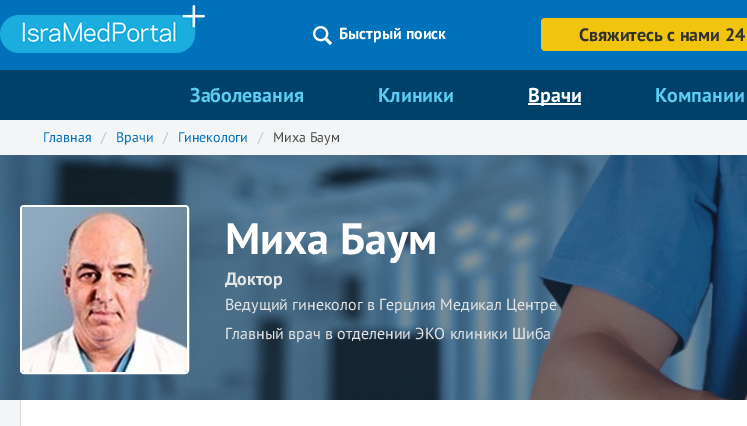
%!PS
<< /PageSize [747 426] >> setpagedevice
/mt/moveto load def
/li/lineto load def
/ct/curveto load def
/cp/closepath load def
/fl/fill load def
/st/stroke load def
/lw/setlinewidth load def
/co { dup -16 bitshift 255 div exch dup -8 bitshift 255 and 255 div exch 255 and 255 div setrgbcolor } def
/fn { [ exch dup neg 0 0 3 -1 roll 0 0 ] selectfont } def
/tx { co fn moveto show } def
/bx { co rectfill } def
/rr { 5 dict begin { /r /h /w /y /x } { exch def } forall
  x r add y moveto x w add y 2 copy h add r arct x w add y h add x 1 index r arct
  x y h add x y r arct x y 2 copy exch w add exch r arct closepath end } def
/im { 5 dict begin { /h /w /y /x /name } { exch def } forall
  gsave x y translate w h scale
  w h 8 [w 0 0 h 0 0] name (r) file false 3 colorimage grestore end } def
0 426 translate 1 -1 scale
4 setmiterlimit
0 0 747 426 16#00416A bx
0 0 747 70 16#0072BB bx
(media/1.raw) 0 5 205 48 im
(media/2.raw) 313 26 19 19 im
16#F1C40F co
541 18 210 33 4 rr fl
528 103 53 2 16#FFFFFF bx
0 120 747 35 16#F3F5F6 bx
(media/3.raw) 0 155 747 245 im
16#FFFFFF co
2 lw
21 206 167 167 3 rr st
(media/4.raw) 22 207 165 165 im
0 400 20 26 16#F3F5F6 bx
21 400 726 26 16#FFFFFF bx
16#D4DBDD co
20 400 mt 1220 400 li 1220 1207 li 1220 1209 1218 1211 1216 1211 ct 24 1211 li 22 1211 20 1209 20 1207 ct cp 21 400 mt 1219 400 li 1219 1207 li 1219 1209 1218 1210 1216 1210 ct 24 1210 li 22 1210 21 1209 21 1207 ct cp eofill
(Быстрый поиск) 339 39 /PTSans-Bold 16 16#FFFFFF tx
(Свяжитесь с нами 24) 579 41 /PTSans-Bold 18 16#303030 tx
(Заболевания) 190 102 /PTSans-Bold 20 16#5CCBF0 tx
(Клиники) 378 102 /PTSans-Bold 20 16#5CCBF0 tx
(Врачи) 528 102 /PTSans-Bold 20 16#FFFFFF tx
(Компании) 655 102 /PTSans-Bold 20 16#5CCBF0 tx
(Главная) 43 142 /PTSans-Regular 14 16#0072BB tx
(/) 101 142 /PTSans-Regular 14 16#C1C1C1 tx
(Врачи) 116 142 /PTSans-Regular 14 16#0072BB tx
(/) 163 142 /PTSans-Regular 14 16#C1C1C1 tx
(Гинекологи) 178 142 /PTSans-Regular 14 16#0072BB tx
(/) 258 142 /PTSans-Regular 14 16#C1C1C1 tx
(Миха Баум) 273 142 /PTSans-Regular 14 16#4A4A4A tx
(Миха Баум) 225 254 /PTSans-Bold 44 16#FFFFFF tx
(Доктор) 225 285 /PTSans-Bold 18 16#E5E5E5 tx
(Ведущий гинеколог в Герцлия Медикал Центре) 225 310 /PTSans-Regular 16 16#E5E5E5 tx
(Главный врач в отделении ЭКО клиники Шиба) 225 339 /PTSans-Regular 16 16#E5E5E5 tx
showpage
